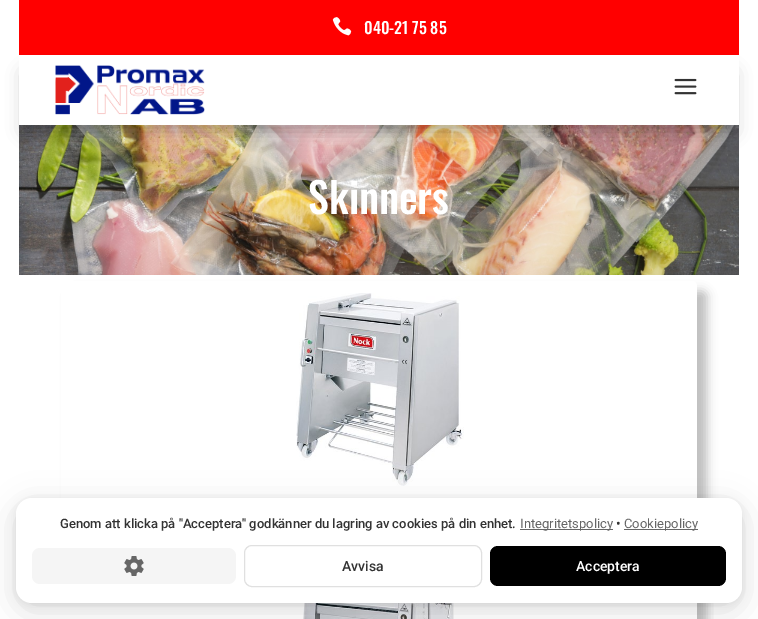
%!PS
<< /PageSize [758 619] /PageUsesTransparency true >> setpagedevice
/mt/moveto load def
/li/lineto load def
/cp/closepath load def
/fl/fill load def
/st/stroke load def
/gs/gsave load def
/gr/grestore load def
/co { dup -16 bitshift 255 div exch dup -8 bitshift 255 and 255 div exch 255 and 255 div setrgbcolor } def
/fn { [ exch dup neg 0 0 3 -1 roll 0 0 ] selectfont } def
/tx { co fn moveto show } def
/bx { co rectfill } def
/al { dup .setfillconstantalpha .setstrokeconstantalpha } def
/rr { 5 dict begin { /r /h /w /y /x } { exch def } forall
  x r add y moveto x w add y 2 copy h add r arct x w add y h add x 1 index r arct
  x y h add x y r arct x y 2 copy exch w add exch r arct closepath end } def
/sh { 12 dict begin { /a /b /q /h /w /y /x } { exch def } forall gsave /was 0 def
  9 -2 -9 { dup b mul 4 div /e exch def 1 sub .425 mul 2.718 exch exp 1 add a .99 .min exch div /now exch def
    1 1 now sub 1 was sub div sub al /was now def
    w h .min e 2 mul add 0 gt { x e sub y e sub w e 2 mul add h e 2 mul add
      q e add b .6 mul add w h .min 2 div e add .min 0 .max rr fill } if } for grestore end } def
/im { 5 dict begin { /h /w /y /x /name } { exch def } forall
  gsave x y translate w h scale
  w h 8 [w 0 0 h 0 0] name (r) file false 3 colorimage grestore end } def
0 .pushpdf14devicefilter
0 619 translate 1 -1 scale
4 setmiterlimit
0 0 758 619 16#FFFFFF bx
19 0 720 55 16#FF0000 bx
(media/1.raw) 332 17 20 19 im
(media/4.raw) 19 125 720 150 im
gs
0 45 mt 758 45 li 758 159 li 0 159 li cp 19 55 mt 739 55 li 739 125 li 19 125 li cp eoclip newpath
16#000000 co
25 73 708 58 0 9 .3 sh
gr
(media/2.raw) 55 65 150 50 im
(media/3.raw) 674 78 23 17 im
16#000000 co
71 291 636 253 5 5 .25 sh
16#FFFFFF co
61 281 636 253 5 rr fl
(media/5.raw) 296 293 168 193 im
gs
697 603 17 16 rectclip
16#000000 co
71 577 636 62 5 5 .25 sh
gr
(media/6.raw) 303 603 151 16 im
16#000000 co
16 500 726 105 16 4 .08 sh
16 506 726 105 16 16 .12 sh
16#FFFFFF co
16 498 726 105 16 rr fl
520 529 93 1 16#666666 bx
624 529 74 1 16#666666 bx
16#F5F5F5 co
32 548 204 36 8 rr fl
(media/7.raw) 124 556 20 20 im
16#E0E0E0 co
244.5 545.5 237 41 7.5 rr st
16#000000 co
490 546 236 40 8 rr fl
(040-21 75 85) 364 34 /Oswald-Medium 16 16#FFFFFF tx
(Skinners) 308 214 /Oswald-Medium 42 16#FFFFFF tx
(Genom att klicka på "Acceptera" godkänner du lagring av cookies på din enhet.) 60 528 /Roboto-Medium 13 16#333333 tx
(Integritetspolicy) 520 528 /Roboto-Regular 13 16#666666 tx
(•) 616 528 /Roboto-Medium 13 16#333333 tx
(Cookiepolicy) 624 528 /Roboto-Regular 13 16#666666 tx
(Avvisa) 342 571 /Roboto-Medium 14 16#333333 tx
(Acceptera) 576 571 /Roboto-Medium 14 16#FFFFFF tx
.poppdf14devicefilter showpage
